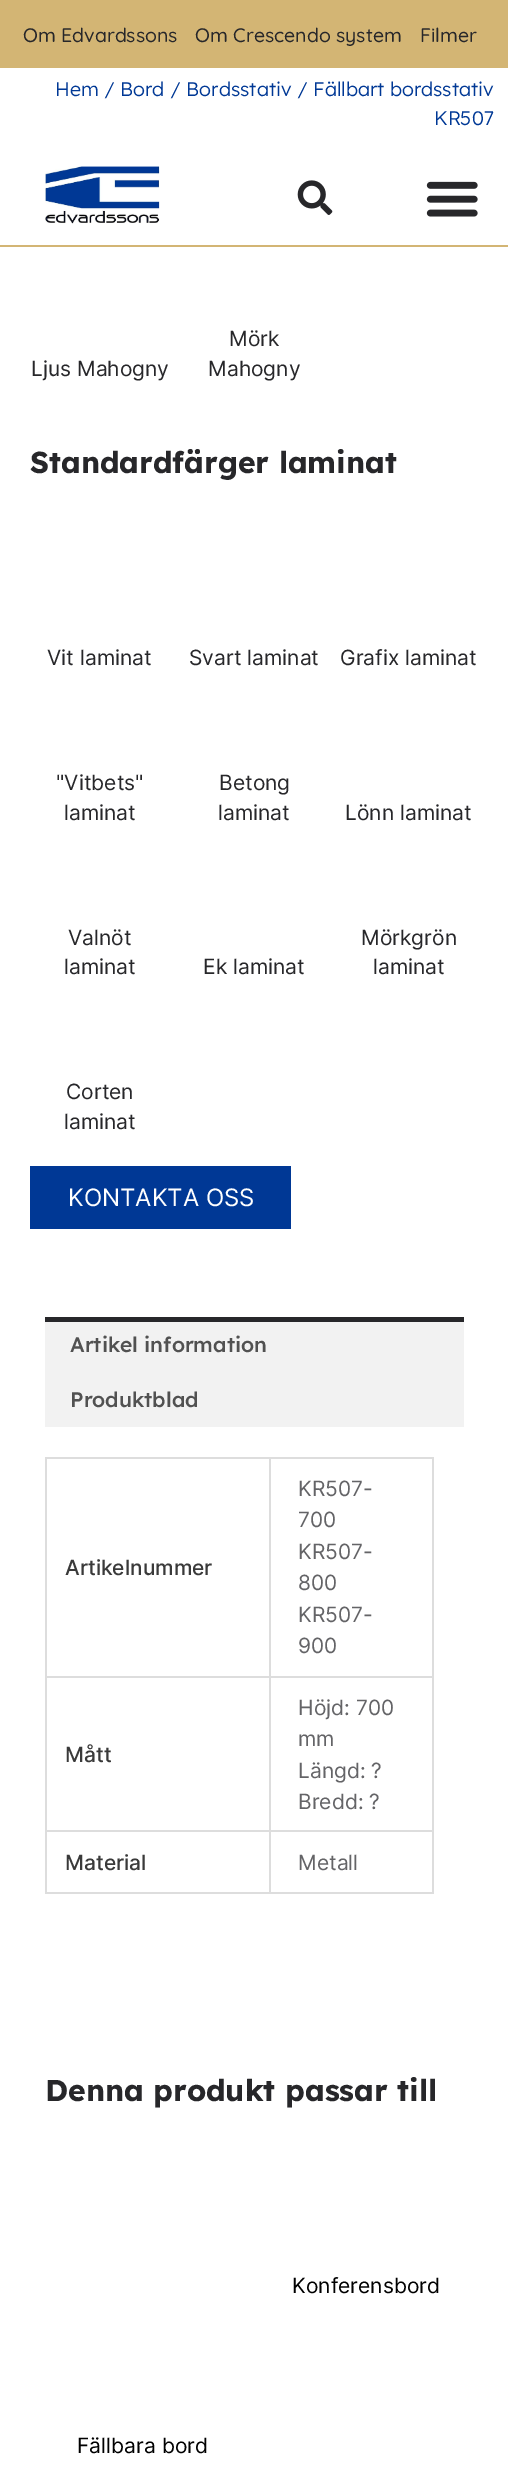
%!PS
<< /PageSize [508 2480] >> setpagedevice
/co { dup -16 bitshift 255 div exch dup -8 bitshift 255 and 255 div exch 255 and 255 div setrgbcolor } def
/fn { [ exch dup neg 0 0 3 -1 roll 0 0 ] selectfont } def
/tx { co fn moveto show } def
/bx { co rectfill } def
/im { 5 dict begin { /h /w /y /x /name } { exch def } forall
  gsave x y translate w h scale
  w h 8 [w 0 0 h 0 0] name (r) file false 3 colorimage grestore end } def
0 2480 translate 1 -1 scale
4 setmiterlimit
0 0 508 2480 16#FFFFFF bx
0 0 508 68 16#D3B574 bx
0 245 508 2 16#D3B574 bx
(media/1.raw) 45 166 115 58 im
(media/2.raw) 297 180 36 35 im
(media/3.raw) 426 181 52 36 im
30 1166 261 63 16#003895 bx
45 1317 419 5 16#27272A bx
45 1322 419 105 16#F2F2F2 bx
45 1457 389 2 16#DDDDDD bx
269 1458 2 219 16#DDDDDD bx
45 1676 225 2 16#DDDDDD bx
45 1458 2 219 16#DDDDDD bx
432 1458 2 219 16#DDDDDD bx
270 1676 164 2 16#DDDDDD bx
269 1677 2 216 16#DDDDDD bx
45 1830 225 2 16#DDDDDD bx
45 1677 2 155 16#DDDDDD bx
432 1677 2 216 16#DDDDDD bx
270 1830 164 2 16#DDDDDD bx
45 1892 389 2 16#DDDDDD bx
45 1832 2 61 16#DDDDDD bx
(Om Edvardssons) 23 42 /Quicksand-Medium 19.5 16#27272A tx
(Om Crescendo system) 195 42 /Quicksand-Medium 19.5 16#27272A tx
(Filmer) 420 42 /Quicksand-Medium 19.5 16#27272A tx
(Hem / Bord / Bordsstativ / Fällbart bordsstativ) 55 96 /Lexend-Light 19.5 16#003895 tx
(KR507) 434 125 /Lexend-Light 19.5 16#003895 tx
(Ljus Mahogny) 31 376 /Inter-Regular 21 16#27272A tx
(Mörk) 229 346 /Inter-Regular 21 16#27272A tx
(Mahogny) 208 376 /Inter-Regular 21 16#27272A tx
(Standardfärger laminat) 30 473 /Lexend-Bold 30 16#27272A tx
(Vit laminat) 47 665 /Inter-Regular 21 16#27272A tx
(Svart laminat) 189 665 /Inter-Regular 21 16#27272A tx
(Grafix laminat) 340 665 /Inter-Regular 21 16#27272A tx
("Vitbets") 56 790 /Inter-Regular 21 16#27272A tx
(laminat) 64 820 /Inter-Regular 21 16#27272A tx
(Betong) 219 790 /Inter-Regular 21 16#27272A tx
(laminat) 218 820 /Inter-Regular 21 16#27272A tx
(Lönn laminat) 345 820 /Inter-Regular 21 16#27272A tx
(Valnöt) 68 945 /Inter-Regular 21 16#27272A tx
(laminat) 64 974 /Inter-Regular 21 16#27272A tx
(Ek laminat) 203 974 /Inter-Regular 21 16#27272A tx
(Mörkgrön) 361 945 /Inter-Regular 21 16#27272A tx
(laminat) 373 974 /Inter-Regular 21 16#27272A tx
(Corten) 66 1099 /Inter-Regular 21 16#27272A tx
(laminat) 64 1129 /Inter-Regular 21 16#27272A tx
(KONTAKTA OSS) 68 1206 /Inter-Regular 24 16#FFFFFF tx
(Artikel information) 70 1352 /Lexend-Medium 21 16#515151 tx
(Produktblad) 70 1407 /Lexend-Medium 21 16#515151 tx
(Artikelnummer) 65 1575 /Inter-Medium 21 16#3A3A3A tx
(KR507-) 298 1496 /Inter-Regular 21 16#646467 tx
(700) 298 1527 /Inter-Regular 21 16#646467 tx
(KR507-) 298 1559 /Inter-Regular 21 16#646467 tx
(800) 298 1590 /Inter-Regular 21 16#646467 tx
(KR507-) 298 1622 /Inter-Regular 21 16#646467 tx
(900) 298 1653 /Inter-Regular 21 16#646467 tx
(Mått) 65 1762 /Inter-Medium 21 16#3A3A3A tx
(Höjd: 700) 298 1715 /Inter-Regular 21 16#646467 tx
(mm) 298 1746 /Inter-Regular 21 16#646467 tx
(Längd: ?) 298 1778 /Inter-Regular 21 16#646467 tx
(Bredd: ?) 298 1809 /Inter-Regular 21 16#646467 tx
(Material) 65 1870 /Inter-Medium 21 16#3A3A3A tx
(Metall) 298 1870 /Inter-Regular 21 16#646467 tx
(Denna produkt passar till) 45 2101 /Lexend-Bold 30 16#27272A tx
(Konferensbord) 292 2293 /Inter-Regular 21 16#000000 tx
(Fällbara bord) 77 2453 /Inter-Regular 21 16#000000 tx
showpage
